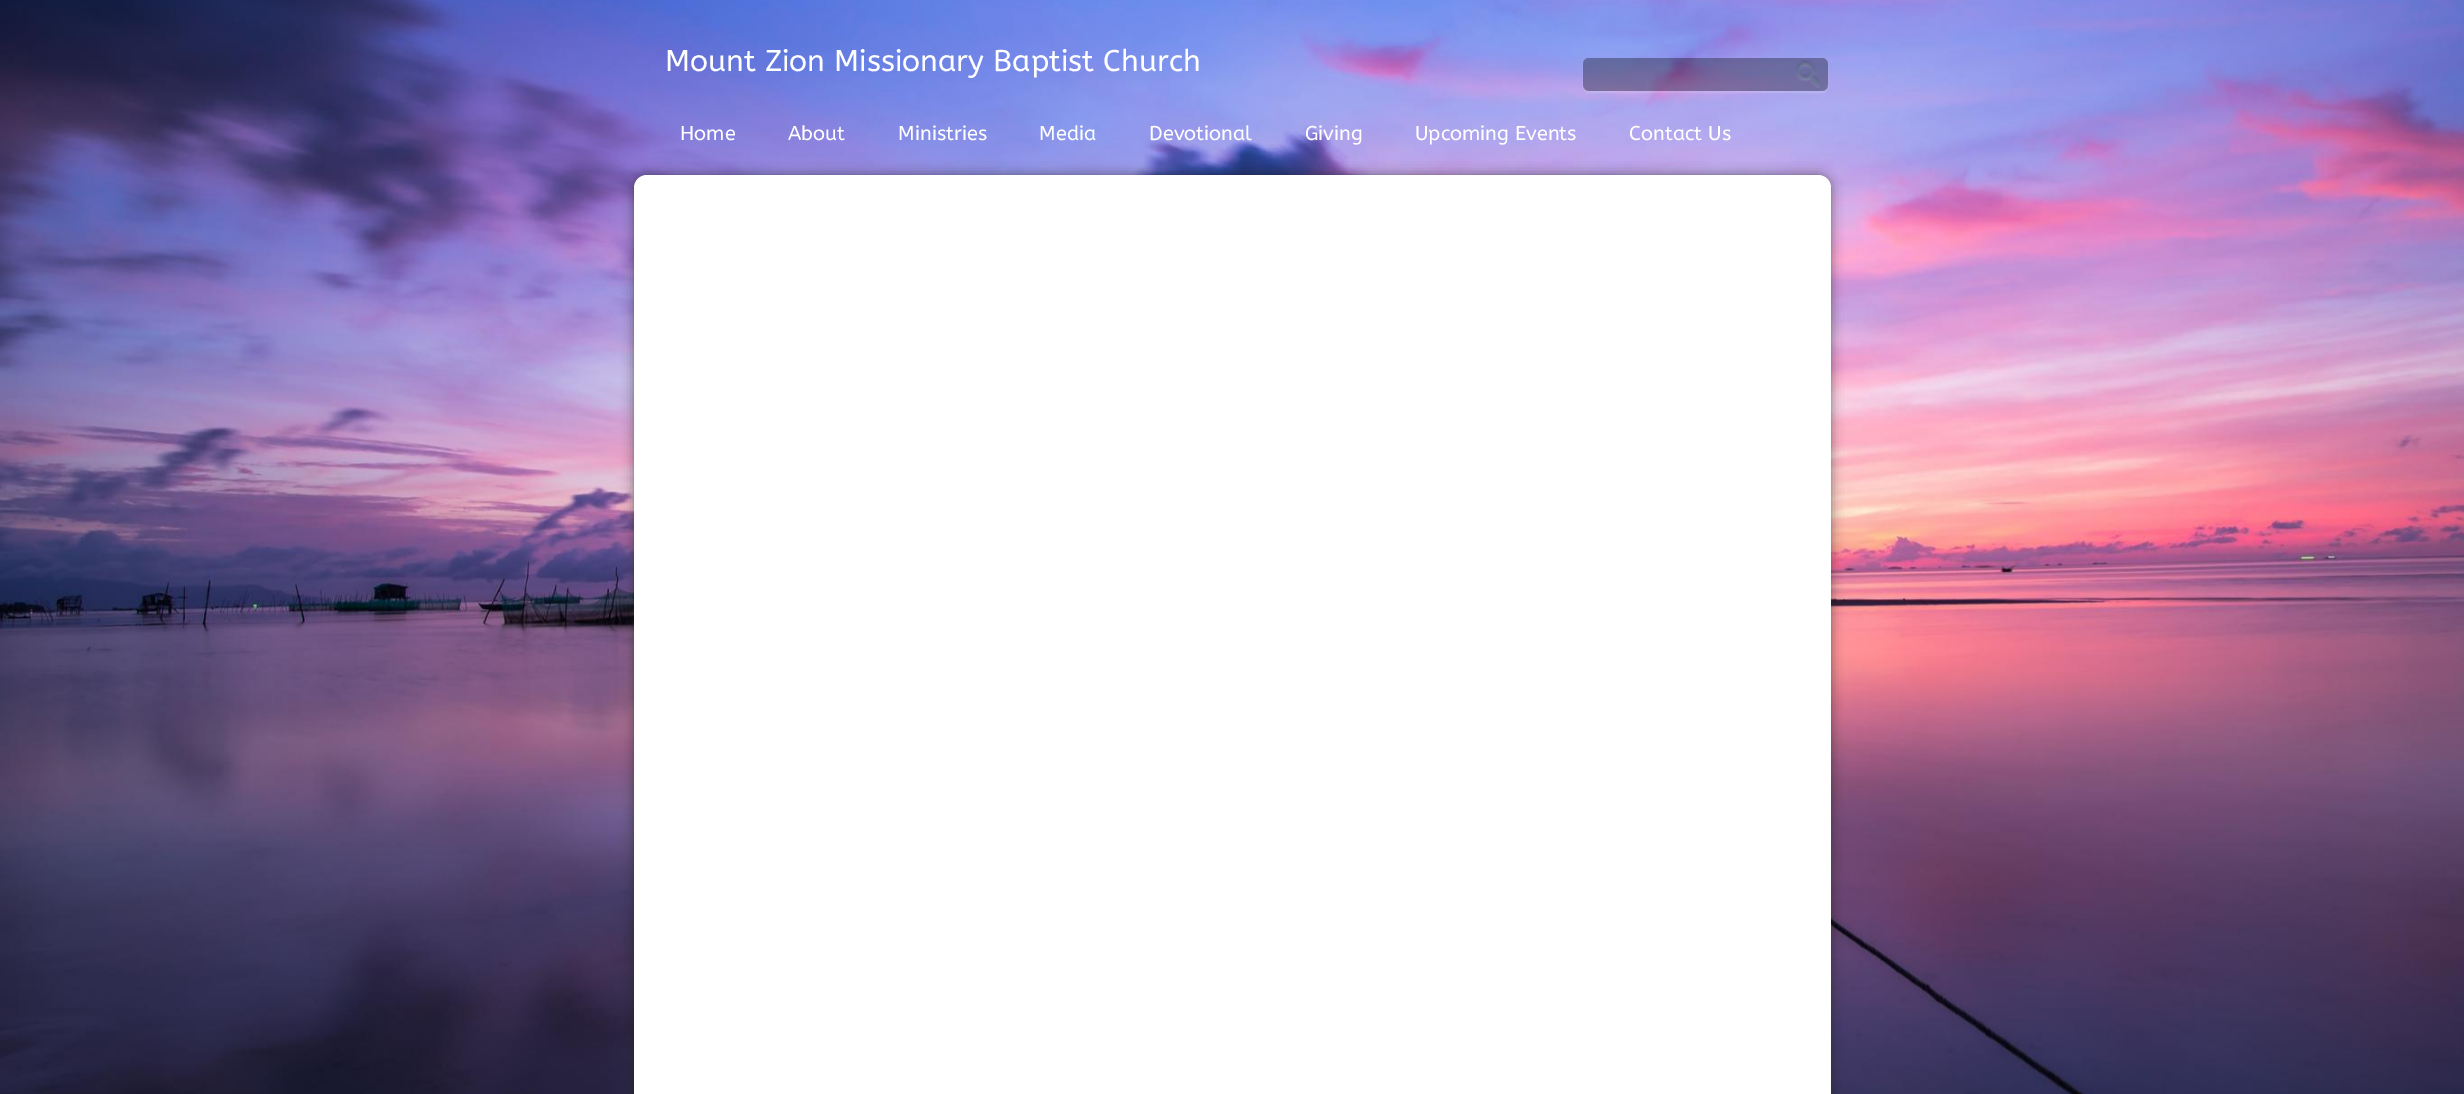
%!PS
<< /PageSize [2464 1094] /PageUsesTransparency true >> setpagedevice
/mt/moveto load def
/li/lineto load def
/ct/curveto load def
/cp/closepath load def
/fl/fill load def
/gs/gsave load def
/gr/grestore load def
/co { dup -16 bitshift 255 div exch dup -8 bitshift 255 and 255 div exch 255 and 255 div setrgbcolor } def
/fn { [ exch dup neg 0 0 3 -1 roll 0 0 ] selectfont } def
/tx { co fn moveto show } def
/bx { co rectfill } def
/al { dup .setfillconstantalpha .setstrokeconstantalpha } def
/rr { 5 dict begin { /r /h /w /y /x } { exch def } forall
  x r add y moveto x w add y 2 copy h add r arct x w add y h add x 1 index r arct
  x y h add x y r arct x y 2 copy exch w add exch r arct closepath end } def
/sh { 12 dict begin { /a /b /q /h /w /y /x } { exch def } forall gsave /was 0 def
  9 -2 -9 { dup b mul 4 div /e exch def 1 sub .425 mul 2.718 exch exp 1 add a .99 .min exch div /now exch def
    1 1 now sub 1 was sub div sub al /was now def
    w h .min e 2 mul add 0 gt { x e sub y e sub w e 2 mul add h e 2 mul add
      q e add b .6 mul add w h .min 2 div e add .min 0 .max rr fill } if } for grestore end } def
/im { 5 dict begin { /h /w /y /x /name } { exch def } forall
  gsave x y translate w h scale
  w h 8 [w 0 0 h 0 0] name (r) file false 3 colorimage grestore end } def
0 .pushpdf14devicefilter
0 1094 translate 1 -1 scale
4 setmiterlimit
0 0 2464 1094 16#FFFFFF bx
(media/1.raw) 0 0 2464 1094 im
gs
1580 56 mt 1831 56 li 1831 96 li 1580 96 li cp 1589 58 mt 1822 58 li 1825.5 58 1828 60.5 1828 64 ct 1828 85 li 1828 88.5 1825.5 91 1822 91 ct 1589 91 li 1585.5 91 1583 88.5 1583 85 ct 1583 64 li 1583 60.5 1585.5 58 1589 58 ct cp eoclip newpath
1583 59 245 34 6 .5 .15 sh
gr
0.35 al
16#070A10 co
1583 58 245 33 6 rr fl
1 al
(media/2.raw) 1796 60 24 28 im
16#1E1E1E co
634 175 1197 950 13 6 .55 sh
16#FFFFFF co
634 175 1197 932 13 rr fl
(Mount Zion Missionary Baptist Church) 665 71 /ABeeZee-Regular 30 16#FFFFFF tx
(Home) 680 140 /ABeeZee-Regular 20 16#FFFFFF tx
(About) 788 140 /ABeeZee-Regular 20 16#FFFFFF tx
(Ministries) 898 140 /ABeeZee-Regular 20 16#FFFFFF tx
(Media) 1039 140 /ABeeZee-Regular 20 16#FFFFFF tx
(Devotional) 1149 140 /ABeeZee-Regular 20 16#FFFFFF tx
(Giving) 1305 140 /ABeeZee-Regular 20 16#FFFFFF tx
(Upcoming Events) 1415 140 /ABeeZee-Regular 20 16#FFFFFF tx
(Contact Us) 1629 140 /ABeeZee-Regular 20 16#FFFFFF tx
.poppdf14devicefilter showpage
